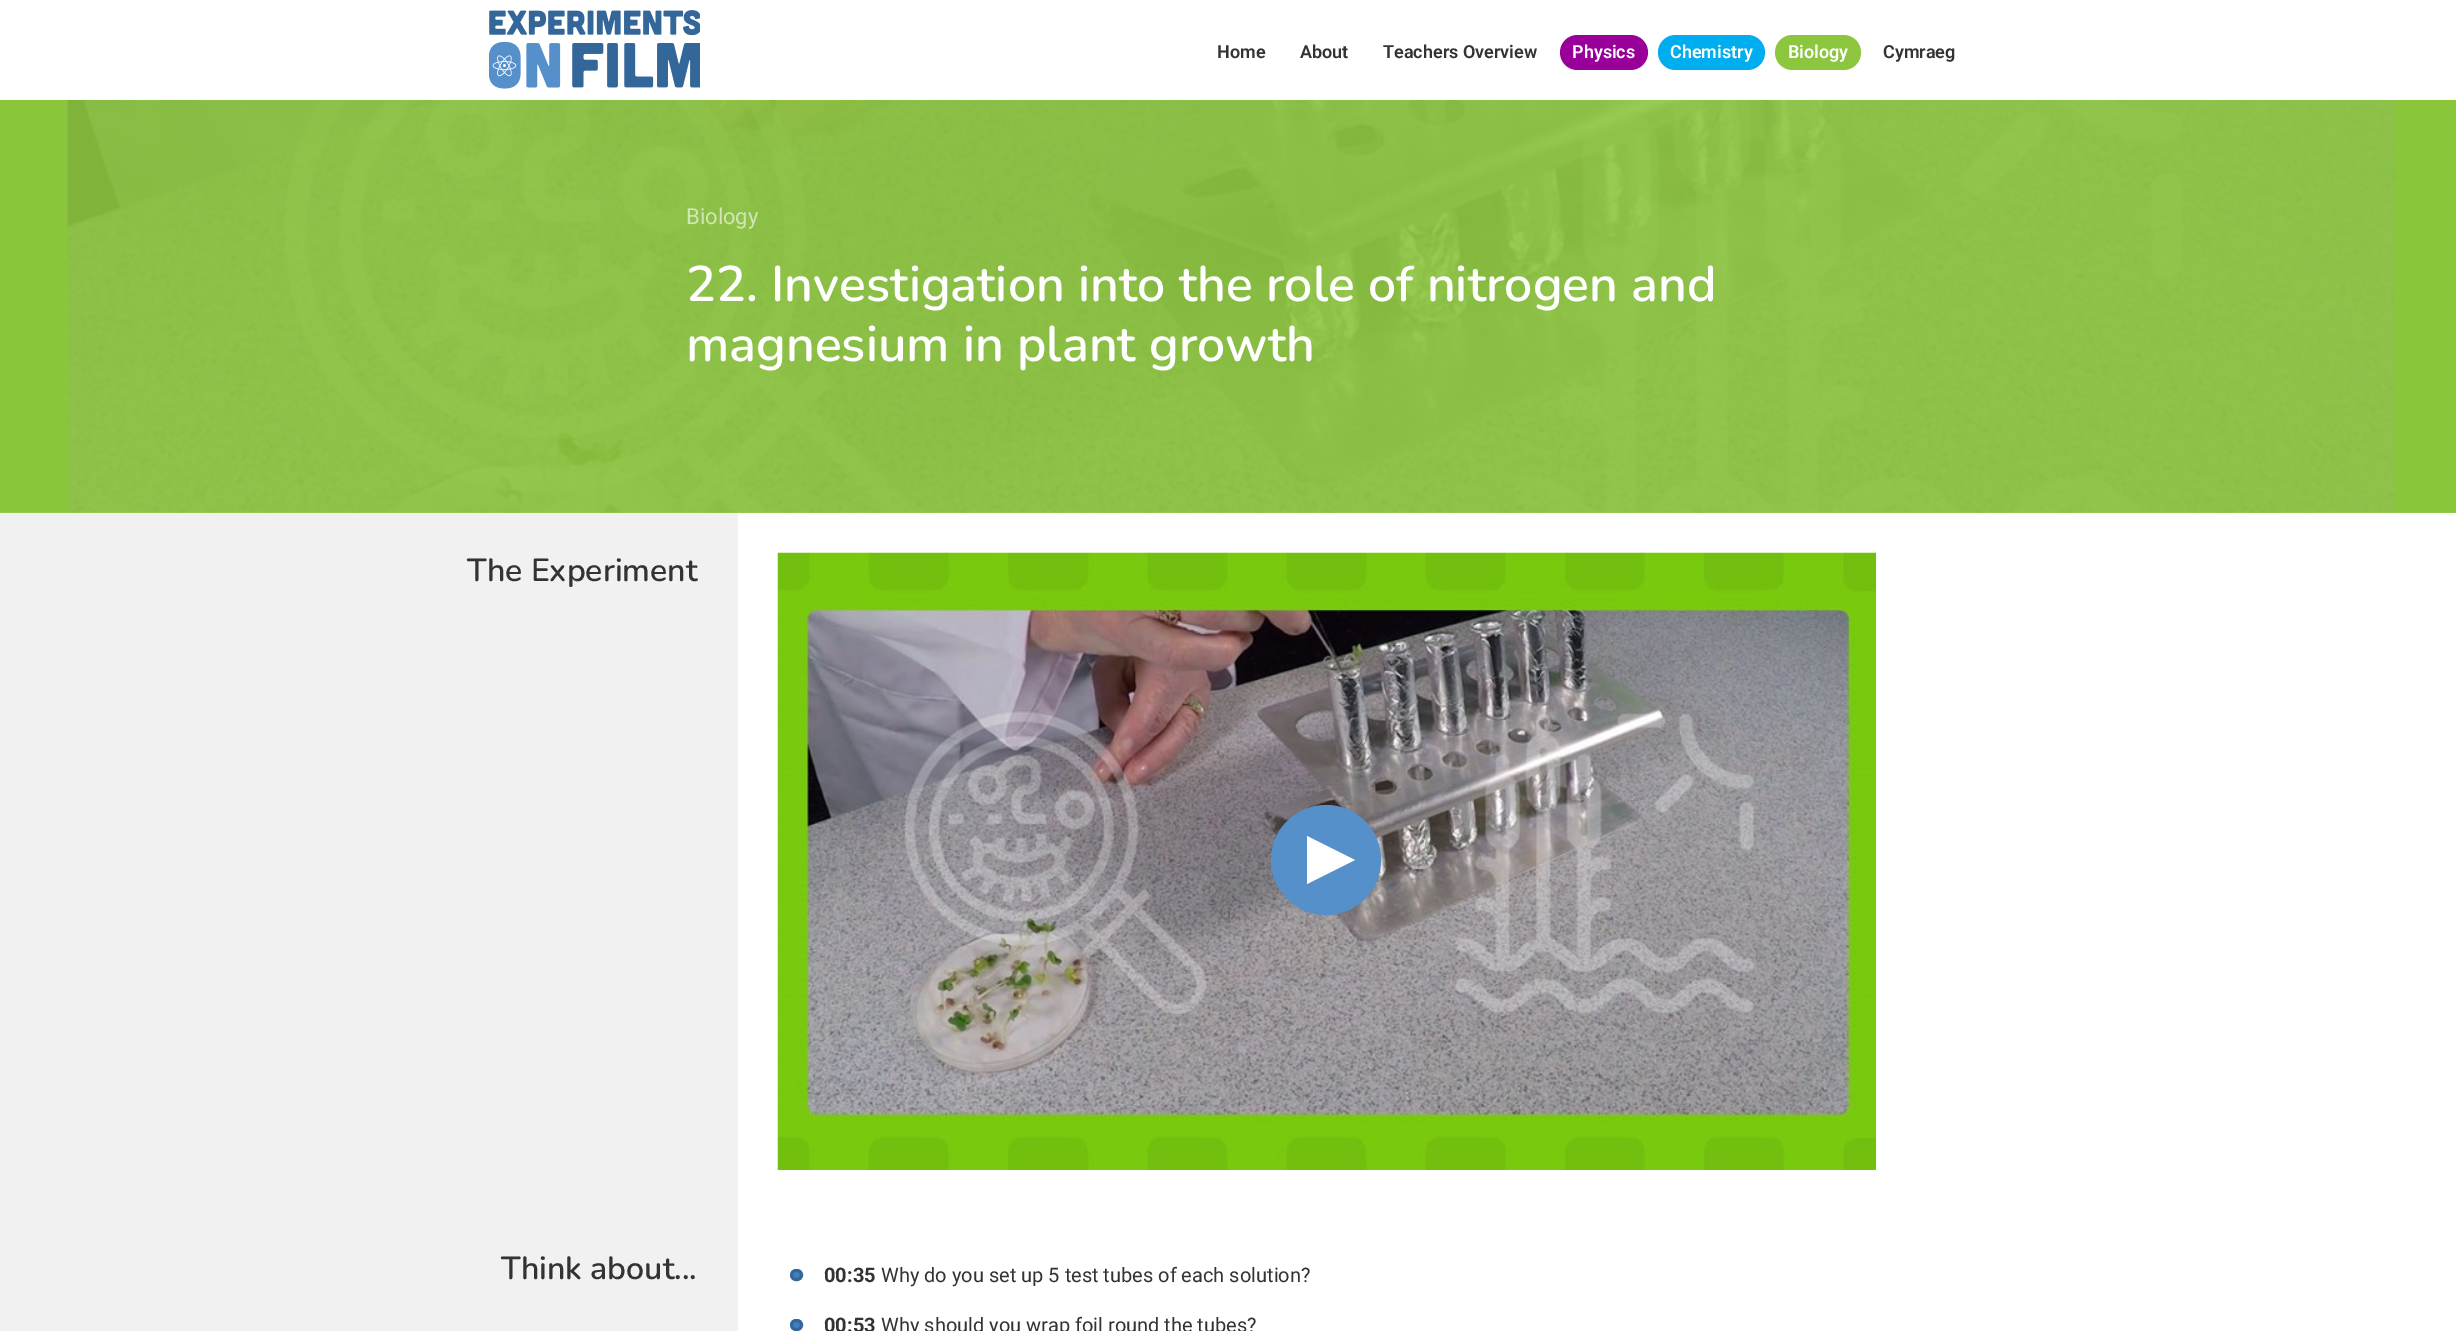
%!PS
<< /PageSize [2456 1331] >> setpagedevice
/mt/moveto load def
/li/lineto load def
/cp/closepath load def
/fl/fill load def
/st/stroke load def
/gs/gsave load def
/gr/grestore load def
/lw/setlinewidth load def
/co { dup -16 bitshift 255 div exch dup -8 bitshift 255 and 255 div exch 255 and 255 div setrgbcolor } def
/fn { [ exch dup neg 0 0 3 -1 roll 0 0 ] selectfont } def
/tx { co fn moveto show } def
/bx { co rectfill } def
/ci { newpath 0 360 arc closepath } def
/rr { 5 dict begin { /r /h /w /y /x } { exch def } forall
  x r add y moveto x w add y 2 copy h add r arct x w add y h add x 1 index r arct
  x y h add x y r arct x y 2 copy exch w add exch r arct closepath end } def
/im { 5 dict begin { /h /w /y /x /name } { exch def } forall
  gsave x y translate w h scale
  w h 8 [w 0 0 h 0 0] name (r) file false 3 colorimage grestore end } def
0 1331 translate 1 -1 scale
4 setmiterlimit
0 0 2456 1331 16#FFFFFF bx
0 512 2456 1 16#98CC52 bx
(media/1.raw) 489 10 211 79 im
16#990099 co
1560 35 88 35 17.5 rr fl
16#00AEEF co
1658 35 107 35 17.5 rr fl
16#8CC63F co
1775 35 86 35 17.5 rr fl
(media/2.raw) 0 100 2456 413 im
0 513 738 818 16#F1F1F1 bx
(media/3.raw) 777 552 1100 618 im
16#5690CA co
1326 860 55 ci fl
16#FFFFFF co
1355 860 mt 1307 884 li 1307 836 li cp fl
16#4080BF co
791.5 1270.5 10 9 4.5 rr gs fl gr
16#336699 co
3 lw
st
16#4080BF co
791.5 1320.5 10 9 4.5 rr gs fl gr
16#336699 co
st
(Home) 1217 58 /Roboto-SemiBold 18 16#333333 tx
(About) 1300 58 /Roboto-SemiBold 18 16#333333 tx
(Teachers Overview) 1383 58 /Roboto-SemiBold 18 16#333333 tx
(Physics) 1572 58 /Roboto-SemiBold 18 16#FFFFFF tx
(Chemistry) 1670 58 /Roboto-SemiBold 18 16#FFFFFF tx
(Biology) 1788 58 /Roboto-SemiBold 18 16#FFFFFF tx
(Cymraeg) 1883 58 /Roboto-SemiBold 18 16#333333 tx
(Biology) 686 224 /Roboto-Regular 22 16#D1E6B6 tx
(22. Investigation into the role of nitrogen and) 686 301 /Nunito-ExtraLight 50 16#FFFFFF tx
(magnesium in plant growth) 686 361 /Nunito-ExtraLight 50 16#FFFFFF tx
(The Experiment) 467 581 /Nunito-ExtraLight 32 16#333333 tx
(Think about...) 501 1279 /Nunito-ExtraLight 32 16#333333 tx
(00:35) 824 1282 /Roboto-Bold 20 16#333333 tx
(Why do you set up 5 test tubes of each solution?) 881 1282 /Roboto-Regular 20 16#333333 tx
(00:53) 824 1332 /Roboto-Bold 20 16#333333 tx
(Why should you wrap foil round the tubes?) 881 1332 /Roboto-Regular 20 16#333333 tx
showpage
